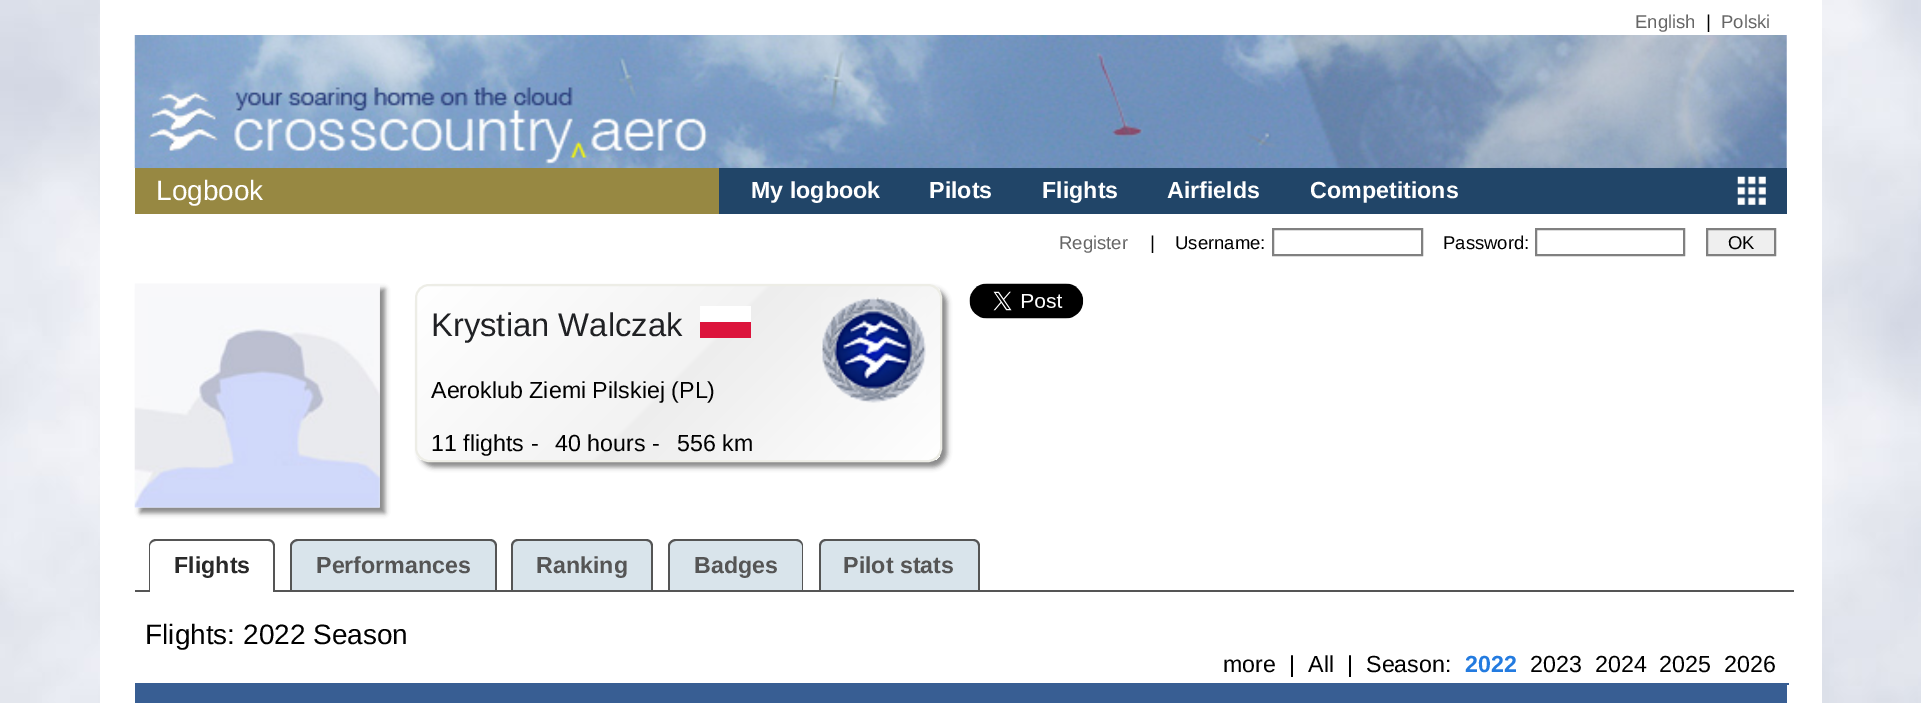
%!PS
<< /PageSize [1921 703] /PageUsesTransparency true >> setpagedevice
/mt/moveto load def
/li/lineto load def
/ct/curveto load def
/cp/closepath load def
/fl/fill load def
/st/stroke load def
/gs/gsave load def
/gr/grestore load def
/lw/setlinewidth load def
/co { dup -16 bitshift 255 div exch dup -8 bitshift 255 and 255 div exch 255 and 255 div setrgbcolor } def
/fn { [ exch dup neg 0 0 3 -1 roll 0 0 ] selectfont } def
/tx { co fn moveto show } def
/bx { co rectfill } def
/al { dup .setfillconstantalpha .setstrokeconstantalpha } def
/rr { 5 dict begin { /r /h /w /y /x } { exch def } forall
  x r add y moveto x w add y 2 copy h add r arct x w add y h add x 1 index r arct
  x y h add x y r arct x y 2 copy exch w add exch r arct closepath end } def
/sh { 12 dict begin { /a /b /q /h /w /y /x } { exch def } forall gsave /was 0 def
  9 -2 -9 { dup b mul 4 div /e exch def 1 sub .425 mul 2.718 exch exp 1 add a .99 .min exch div /now exch def
    1 1 now sub 1 was sub div sub al /was now def
    w h .min e 2 mul add 0 gt { x e sub y e sub w e 2 mul add h e 2 mul add
      q e add b .6 mul add w h .min 2 div e add .min 0 .max rr fill } if } for grestore end } def
/im { 5 dict begin { /h /w /y /x /name } { exch def } forall
  gsave x y translate w h scale
  w h 8 [w 0 0 h 0 0] name (r) file false 3 colorimage grestore end } def
0 .pushpdf14devicefilter
0 703 translate 1 -1 scale
4 setmiterlimit
0 0 1921 703 16#FFFFFF bx
(media/1.raw) 0 0 1921 703 im
100 0 1722 703 16#FFFFFF bx
(media/2.raw) 134 35 1653 133 im
135 168 584 46 16#978842 bx
719 168 1068 46 16#214568 bx
(media/3.raw) 1737 176 29 29 im
16#808080 co
2 lw
1273 229 149 26 rectstroke
1536 229 148 26 rectstroke
16#EFEFEF co
1707 229 mt 1775 229 li 1775 255 li 1707 255 li cp gs fl gr
16#808080 co
st
16#888888 co
140 289 245 224 0 2.5 1 sh
(media/4.raw) 134 283 246 225 im
(media/5.raw) 969 283 115 36 im
420 289 527 178 14 2.5 1 sh
gs
415 284 527 178 14 rr clip newpath
gs 417 285 mt 940 285 li 940 460 li 417 460 li cp clip newpath
<< /ShadingType 2 /ColorSpace /DeviceRGB /Coords [504 198 853 547] /Extend [true true] /Function << /FunctionType 3 /Domain [0 1] /Functions [<< /FunctionType 2 /Domain [0 1] /C0 [1 1 1] /C1 [.953 .953 .953] /N 1 >> << /FunctionType 2 /Domain [0 1] /C0 [.953 .953 .953] /C1 [.929 .929 .929] /N 1 >> << /FunctionType 2 /Domain [0 1] /C0 [.929 .929 .929] /C1 [1 1 1] /N 1 >>] /Bounds [.5 .51] /Encode [0 1 0 1 0 1] >> >> shfill gr
gr
16#EDEDE6 co
416 285 525 176 13 rr st
700 306 51 16 16#FFFFFF bx
700 322 51 16 16#DC143C bx
(media/6.raw) 821 297 105 106 im
135 590 1659 2 16#555555 bx
16#FFFFFF co
156 539 mt 268 539 li 272 539 275 542 275 546 ct 275 592 li 149 592 li 149 546 li 149 542 152 539 156 539 ct cp fl
16#555555 co
156 539 mt 268 539 li 272 539 275 542 275 546 ct 275 592 li 149 592 li 149 546 li 149 542 152 539 156 539 ct cp 156 541 mt 268 541 li 271 541 273 543 273 546 ct 273 592 li 150 592 li 150 546 li 150 543 153 541 156 541 ct cp eofill
16#D9E4EB co
298 539 mt 490 539 li 494 539 497 542 497 546 ct 497 590 li 291 590 li 291 546 li 291 542 294 539 298 539 ct cp fl
16#555555 co
298 539 mt 490 539 li 494 539 497 542 497 546 ct 497 590 li 290 590 li 290 546 li 290 542 294 539 298 539 ct cp 298 541 mt 490 541 li 493 541 495 543 495 546 ct 495 590 li 292 590 li 292 546 li 292 543 295 541 298 541 ct cp eofill
16#D9E4EB co
518 539 mt 646 539 li 650 539 653 542 653 546 ct 653 590 li 511 590 li 511 546 li 511 542 514 539 518 539 ct cp fl
16#555555 co
518 539 mt 646 539 li 650 539 653 542 653 546 ct 653 590 li 511 590 li 511 546 li 511 542 514 539 518 539 ct cp 518 541 mt 646 541 li 649 541 651 543 651 546 ct 651 590 li 513 590 li 513 546 li 513 543 515 541 518 541 ct cp eofill
16#D9E4EB co
676 539 mt 796 539 li 800 539 803 542 803 546 ct 803 590 li 669 590 li 669 546 li 669 542 672 539 676 539 ct cp fl
16#555555 co
676 539 mt 796 539 li 800 539 803 542 803 546 ct 803 590 li 668 590 li 668 546 li 668 542 672 539 676 539 ct cp 676 541 mt 796 541 li 799 541 802 543 802 546 ct 802 590 li 670 590 li 670 546 li 670 543 673 541 676 541 ct cp eofill
16#D9E4EB co
826 539 mt 973 539 li 977 539 980 542 980 546 ct 980 590 li 819 590 li 819 546 li 819 542 822 539 826 539 ct cp fl
16#555555 co
826 539 mt 973 539 li 977 539 980 542 980 546 ct 980 590 li 819 590 li 819 546 li 819 542 822 539 826 539 ct cp 826 541 mt 973 541 li 976 541 978 543 978 546 ct 978 590 li 821 590 li 821 546 li 821 543 823 541 826 541 ct cp eofill
135 683 1566 20 16#385E93 bx
1701 685 86 18 16#385E93 bx
1699 683 90 2 16#385E93 bx
(English) 1635 28 /LiberationSans-Regular 18.5 16#666666 tx
(|) 1706 28 /LiberationSans-Regular 18.5 16#000000 tx
(Polski) 1721 28 /LiberationSans-Regular 18.5 16#666666 tx
(Logbook) 156 200 /LiberationSans-Regular 28 16#FFFFFF tx
(My logbook) 751 198 /LiberationSans-Bold 23.25 16#FFFFFF tx
(Pilots) 929 198 /LiberationSans-Bold 23.25 16#FFFFFF tx
(Flights) 1042 198 /LiberationSans-Bold 23.25 16#FFFFFF tx
(Airfields) 1167 198 /LiberationSans-Bold 23.25 16#FFFFFF tx
(Competitions) 1310 198 /LiberationSans-Bold 23.25 16#FFFFFF tx
(Register) 1059 249 /LiberationSans-Regular 18.5 16#666666 tx
(|) 1150 249 /LiberationSans-Regular 18.5 16#000000 tx
(Username:) 1175 249 /LiberationSans-Regular 18.5 16#000000 tx
(Password:) 1443 249 /LiberationSans-Regular 18.5 16#000000 tx
(OK) 1728 249 /LiberationSans-Regular 18.5 16#000000 tx
(Krystian Walczak) 431 336 /LiberationSans-Regular 32.75 16#202124 tx
(Aeroklub Ziemi Pilskiej \(PL\)) 431 398 /LiberationSans-Regular 23.25 16#000000 tx
(11 flights -) 431 451 /LiberationSans-Regular 23.25 16#000000 tx
(40 hours -) 555 451 /LiberationSans-Regular 23.25 16#000000 tx
(556 km) 677 451 /LiberationSans-Regular 23.25 16#000000 tx
(Flights) 174 573 /LiberationSans-Bold 23.25 16#292929 tx
(Performances) 316 573 /LiberationSans-Bold 23.25 16#555555 tx
(Ranking) 536 573 /LiberationSans-Bold 23.25 16#555555 tx
(Badges) 694 573 /LiberationSans-Bold 23.25 16#555555 tx
(Pilot stats) 843 573 /LiberationSans-Bold 23.25 16#555555 tx
(Flights: 2022 Season) 145 644 /LiberationSans-Regular 28 16#000000 tx
(more) 1223 672 /LiberationSans-Regular 23.25 16#000000 tx
(|) 1289 672 /LiberationSans-Regular 23.25 16#000000 tx
(All) 1308 672 /LiberationSans-Regular 23.25 16#000000 tx
(|) 1347 672 /LiberationSans-Regular 23.25 16#000000 tx
(Season:) 1366 672 /LiberationSans-Regular 23.25 16#000000 tx
(2022) 1465 672 /LiberationSans-Bold 23.25 16#237BE0 tx
(2023) 1530 672 /LiberationSans-Regular 23.25 16#000000 tx
(2024) 1595 672 /LiberationSans-Regular 23.25 16#000000 tx
(2025) 1659 672 /LiberationSans-Regular 23.25 16#000000 tx
(2026) 1724 672 /LiberationSans-Regular 23.25 16#000000 tx
.poppdf14devicefilter showpage
